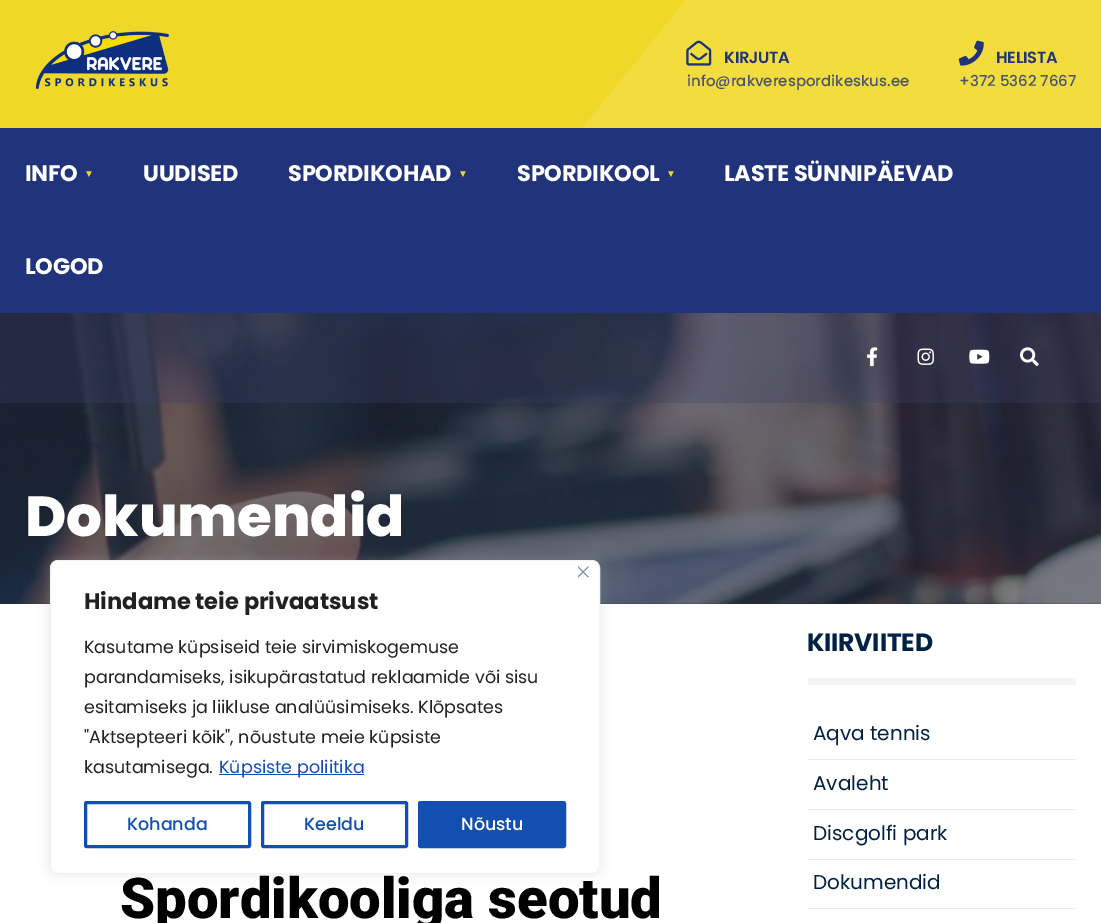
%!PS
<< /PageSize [1101 923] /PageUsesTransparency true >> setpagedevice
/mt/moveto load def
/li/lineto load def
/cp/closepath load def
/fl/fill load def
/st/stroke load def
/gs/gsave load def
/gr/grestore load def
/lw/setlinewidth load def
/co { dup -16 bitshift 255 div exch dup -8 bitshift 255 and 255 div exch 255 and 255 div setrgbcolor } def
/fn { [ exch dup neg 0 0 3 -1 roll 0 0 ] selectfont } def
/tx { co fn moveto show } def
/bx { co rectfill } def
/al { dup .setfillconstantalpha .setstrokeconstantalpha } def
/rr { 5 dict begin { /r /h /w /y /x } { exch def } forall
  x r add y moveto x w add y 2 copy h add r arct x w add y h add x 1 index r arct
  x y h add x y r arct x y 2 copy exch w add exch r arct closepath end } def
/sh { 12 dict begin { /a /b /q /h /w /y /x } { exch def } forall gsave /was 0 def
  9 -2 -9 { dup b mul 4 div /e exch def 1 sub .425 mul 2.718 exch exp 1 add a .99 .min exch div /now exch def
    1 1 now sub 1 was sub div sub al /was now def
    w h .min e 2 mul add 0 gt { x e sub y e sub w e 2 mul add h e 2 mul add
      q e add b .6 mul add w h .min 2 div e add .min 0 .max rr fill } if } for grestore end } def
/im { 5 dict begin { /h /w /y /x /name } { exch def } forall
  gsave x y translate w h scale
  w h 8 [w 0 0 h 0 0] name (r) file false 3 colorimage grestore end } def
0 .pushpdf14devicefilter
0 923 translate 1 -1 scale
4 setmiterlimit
0 0 1101 923 16#FFFFFF bx
0 0 686 128 16#F0D829 bx
(media/1.raw) 35 31 134 58 im
gs
0 0 1101 128 rectclip
16#F2DC3E co
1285 -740 mt 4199 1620 li 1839 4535 li -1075 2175 li cp fl
gr
(media/2.raw) 686 40 26 26 im
(media/3.raw) 958 40 26 26 im
0 128 1101 185 16#21337A bx
0 313 1101 291 16#2A2A3F bx
(media/8.raw) 0 313 1101 291 im
0.3 al
0 313 1101 90 16#3B3F68 bx
1 al
(media/4.raw) 867 347 11 20 im
(media/5.raw) 917 348 17 17 im
(media/6.raw) 969 349 21 15 im
(media/7.raw) 1020 347 19 19 im
808 678 268 7 16#F5F5F5 bx
808 759 268 1 16#EAEAEA bx
808 809 268 1 16#EAEAEA bx
808 859 268 1 16#EAEAEA bx
808 908 268 1 16#EAEAEA bx
16#ACABAB co
50 559 550 314 8 6 .3 sh
16#FFFFFF co
50.5 560.5 549 313 7.5 rr gs fl gr
16#F4F4F4 co
st
(media/9.raw) 578 566 11 12 im
219 774 145 1 16#134FB0 bx
3 lw
85.5 802.5 164 44 1 rr st
262.5 802.5 144 44 1 rr st
419.5 802.5 145 44 1 rr gs fl gr
st
/Poppins-SemiBold 16.25 fn
16#21337A co
724 63 mt -.25 0 (KIRJUTA) ashow
(info@rakverespordikeskus.ee) 687 86 /Poppins-Medium 15 16#4B556E tx
/Poppins-SemiBold 16.25 fn
16#21337A co
996 63 mt -.25 0 (HELISTA) ashow
(+372 5362 7667) 959 86 /Poppins-Medium 15 16#4B556E tx
/Poppins-Bold 22.5 fn
16#FFFFFF co
25 181 mt -.25 0 (INFO) ashow
/LiberationSans-Regular 10 fn
16#F0D829 co
84 177 mt -.25 0 (▼) ashow
/Poppins-Bold 22.5 fn
16#FFFFFF co
143 181 mt -.25 0 (UUDISED) ashow
288 181 mt -.25 0 (SPORDIKOHAD) ashow
/LiberationSans-Regular 10 fn
16#F0D829 co
458 177 mt -.25 0 (▼) ashow
/Poppins-Bold 22.5 fn
16#FFFFFF co
517 181 mt -.25 0 (SPORDIKOOL) ashow
/LiberationSans-Regular 10 fn
16#F0D829 co
666 177 mt -.25 0 (▼) ashow
/Poppins-Bold 22.5 fn
16#FFFFFF co
724 181 mt -.25 0 (LASTE SÜNNIPÄEVAD) ashow
25 274 mt -.25 0 (LOGOD) ashow
(Dokumendid) 25 536 /Poppins-ExtraBold 56.25 16#FFFFFF tx
/Poppins-Bold 25 fn
16#002044 co
807 651 mt -.25 0 (KIIRVIITED) ashow
(Aqva tennis) 813 740 /Poppins-Regular 20 16#002044 tx
(Avaleht) 813 790 /Poppins-Regular 20 16#002044 tx
(Discgolfi park) 813 840 /Poppins-Regular 20 16#002044 tx
(Dokumendid) 813 889 /Poppins-Regular 20 16#002044 tx
(Spordikooliga seotud) 120 918 /Roboto-Black 56.25 16#000000 tx
(Hindame teie privaatsust) 84 609 /Poppins-Bold 22.5 16#212121 tx
(Kasutame küpsiseid teie sirvimiskogemuse) 84 653 /Poppins-Regular 17.5 16#212121 tx
(parandamiseks, isikupärastatud reklaamide või sisu) 84 683 /Poppins-Regular 17.5 16#212121 tx
(esitamiseks ja liikluse analüüsimiseks. Klõpsates) 84 713 /Poppins-Regular 17.5 16#212121 tx
("Aktsepteeri kõik", nõustute meie küpsiste) 84 743 /Poppins-Regular 17.5 16#212121 tx
(kasutamisega.) 84 773 /Poppins-Regular 17.5 16#212121 tx
(Küpsiste poliitika) 219 773 /Poppins-Regular 17.5 16#134FB0 tx
(Kohanda) 127 830 /Poppins-Medium 17.5 16#134FB0 tx
(Keeldu) 304 830 /Poppins-Medium 17.5 16#134FB0 tx
(Nõustu) 461 830 /Poppins-Medium 17.5 16#FFFFFF tx
.poppdf14devicefilter showpage
